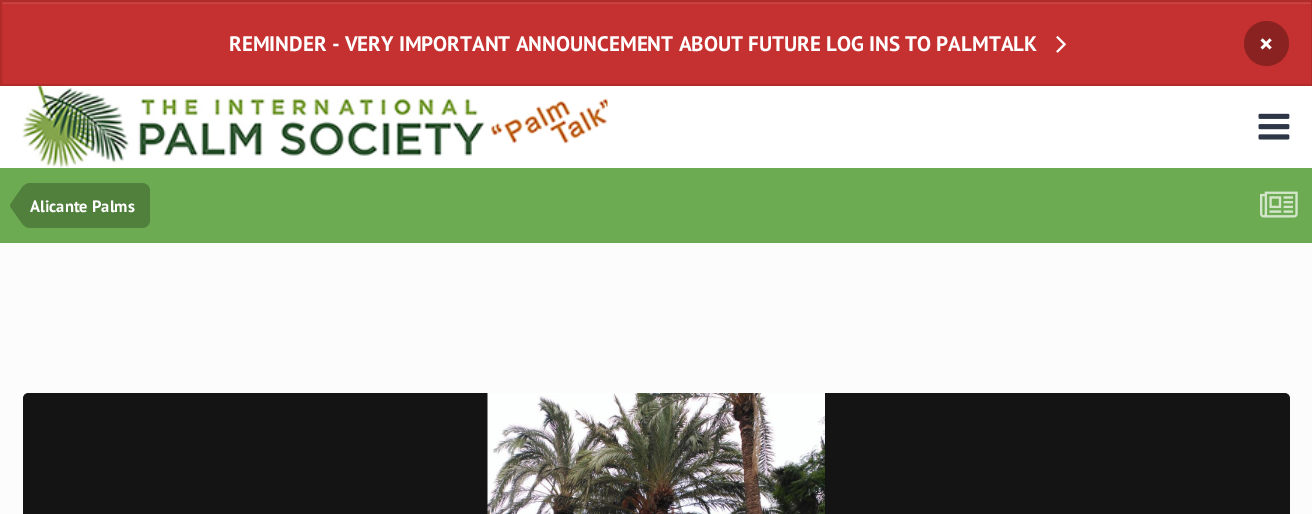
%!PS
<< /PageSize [1312 514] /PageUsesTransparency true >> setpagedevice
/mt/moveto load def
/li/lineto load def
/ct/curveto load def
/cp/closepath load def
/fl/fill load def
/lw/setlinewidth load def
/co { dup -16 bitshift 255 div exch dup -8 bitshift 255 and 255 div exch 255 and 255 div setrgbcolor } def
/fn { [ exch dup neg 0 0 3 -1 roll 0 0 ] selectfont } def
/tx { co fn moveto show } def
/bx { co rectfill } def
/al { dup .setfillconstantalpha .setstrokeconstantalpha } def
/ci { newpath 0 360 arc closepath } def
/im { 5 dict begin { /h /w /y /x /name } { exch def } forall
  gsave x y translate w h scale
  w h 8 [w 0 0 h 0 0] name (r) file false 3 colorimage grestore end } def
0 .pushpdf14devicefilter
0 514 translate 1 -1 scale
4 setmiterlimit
0 0 1312 514 16#FCFCFC bx
2 4 1309 80 16#C53030 bx
2 2 1309 2 16#CB4545 bx
16#B12B2B co
2 lw
1 1 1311 84 rectstroke
(media/1.raw) 1056 36 10 17 im
16#8A2222 co
1266.5 43.5 22.5 ci fl
0 86 1312 82 16#FFFFFF bx
(media/2.raw) 22 86 586 82 im
(media/3.raw) 1258 113 32 27 im
0 168 1312 75 16#6CAB51 bx
16#51803D co
30 183 mt 142 183 li 146.5 183 150 186.5 150 191 ct 150 220 li 150 224.5 146.5 228 142 228 ct 30 228 li cp fl
10.5 207 mt 10 205.5 li 30 205.5 li 30 228 li 27 228 23.5 226 21 222 ct cp fl
0.25 al
16#000000 co
30 183 mt 30 205.5 li 10 205.5 li 10.5 204 li 21 189 li 23.5 185 27 183 30 183 ct cp fl
1 al
(media/4.raw) 1260 191 38 27 im
16#333333 co
29 393 mt 1284 393 li 1287.5 393 1290 395.5 1290 399 ct 1290 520 li 23 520 li 23 399 li 23 395.5 25.5 393 29 393 ct cp fl
0.6 al
16#000000 co
29 393 mt 1284 393 li 1287.5 393 1290 395.5 1290 399 ct 1290 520 li 23 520 li 23 399 li 23 395.5 25.5 393 29 393 ct cp fl
1 al
(media/5.raw) 487 393 338 121 im
(REMINDER - VERY IMPORTANT ANNOUNCEMENT ABOUT FUTURE LOG INS TO PALMTALK) 229 51 /PTSans-Bold 21 16#FFFFFF tx
(×) 1259 53 /PTSans-Bold 27 16#FFFFFF tx
(Alicante Palms) 30 212 /PTSans-Bold 16.5 16#FFFFFF tx
.poppdf14devicefilter showpage
